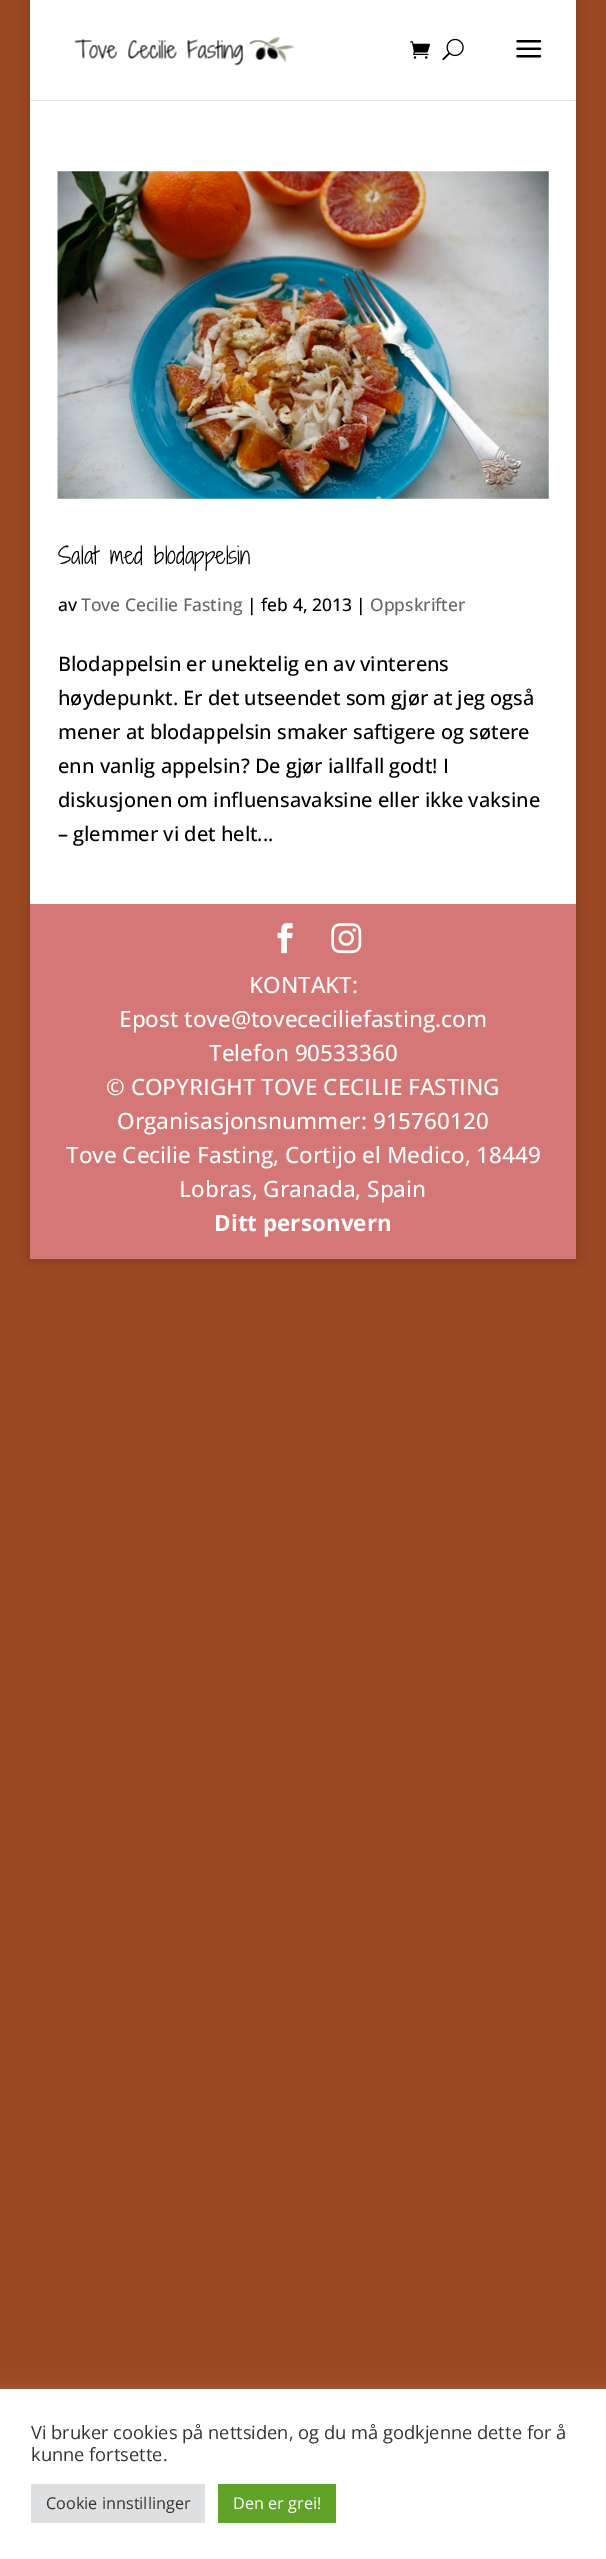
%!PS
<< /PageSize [606 2559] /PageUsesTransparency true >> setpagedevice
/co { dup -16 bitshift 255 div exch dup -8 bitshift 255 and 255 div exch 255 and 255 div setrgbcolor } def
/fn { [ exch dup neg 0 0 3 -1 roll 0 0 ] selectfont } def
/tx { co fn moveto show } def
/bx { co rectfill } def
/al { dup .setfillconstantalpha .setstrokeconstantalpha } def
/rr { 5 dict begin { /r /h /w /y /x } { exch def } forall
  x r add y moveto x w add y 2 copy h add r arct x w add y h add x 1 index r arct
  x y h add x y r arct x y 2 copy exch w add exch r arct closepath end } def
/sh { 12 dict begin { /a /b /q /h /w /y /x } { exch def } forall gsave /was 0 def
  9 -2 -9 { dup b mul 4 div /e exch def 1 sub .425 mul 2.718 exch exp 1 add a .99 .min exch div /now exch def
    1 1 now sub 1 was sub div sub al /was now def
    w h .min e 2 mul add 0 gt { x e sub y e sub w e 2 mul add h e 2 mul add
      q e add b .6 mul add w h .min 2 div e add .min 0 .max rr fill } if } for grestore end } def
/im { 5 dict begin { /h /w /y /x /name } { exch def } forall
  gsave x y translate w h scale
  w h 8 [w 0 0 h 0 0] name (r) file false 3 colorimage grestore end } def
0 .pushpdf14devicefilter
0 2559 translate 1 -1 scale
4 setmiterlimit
0 0 606 2559 16#9B4922 bx
16#000000 co
30 0 546 1259 0 6 .2 sh
30 100 546 1 16#E6E6E6 bx
30 0 546 100 16#FFFFFF bx
(media/1.raw) 74 36 221 30 im
(media/2.raw) 410 41 20 18 im
(media/3.raw) 442 38 22 23 im
(media/4.raw) 516 40 26 18 im
30 101 546 803 16#FFFFFF bx
(media/5.raw) 57 171 492 328 im
30 904 546 355 16#D67777 bx
(media/6.raw) 277 923 16 31 im
(media/7.raw) 331 923 31 31 im
16#ACABAB co
0 2388 606 171 0 6 .3 sh
0 2389 606 170 16#FFFFFF bx
31 2484 174 39 16#DEDFE0 bx
218 2484 118 39 16#61A229 bx
(Salat med blodappelsin) 58 564 /ShadowsIntoLightTwo-Light 22.5 16#000000 tx
(av) 58 611 /OpenSans-Medium 17.5 16#000000 tx
(Tove Cecilie Fasting) 81 611 /OpenSans-Medium 17.5 16#666666 tx
(| feb 4, 2013 |) 247 611 /OpenSans-Medium 17.5 16#000000 tx
(Oppskrifter) 370 611 /OpenSans-Medium 17.5 16#666666 tx
(Blodappelsin er unektelig en av vinterens) 58 671 /OpenSans-Medium 20 16#000000 tx
(høydepunkt. Er det utseendet som gjør at jeg også) 58 705 /OpenSans-Medium 20 16#000000 tx
(mener at blodappelsin smaker saftigere og søtere) 58 739 /OpenSans-Medium 20 16#000000 tx
(enn vanlig appelsin? De gjør iallfall godt! I) 58 773 /OpenSans-Medium 20 16#000000 tx
(diskusjonen om influensavaksine eller ikke vaksine) 58 807 /OpenSans-Medium 20 16#000000 tx
(– glemmer vi det helt...) 58 841 /OpenSans-Medium 20 16#000000 tx
(KONTAKT:) 249 993 /OpenSans-Medium 22.5 16#FFFFFF tx
(Epost tove@tovececiliefasting.com) 119 1027 /OpenSans-Medium 22.5 16#FFFFFF tx
(Telefon 90533360) 209 1061 /OpenSans-Medium 22.5 16#FFFFFF tx
(© COPYRIGHT TOVE CECILIE FASTING) 106 1095 /OpenSans-Medium 22.5 16#FFFFFF tx
(Organisasjonsnummer: 915760120) 117 1129 /OpenSans-Medium 22.5 16#FFFFFF tx
(Tove Cecilie Fasting, Cortijo el Medico, 18449) 66 1163 /OpenSans-Medium 22.5 16#FFFFFF tx
(Lobras, Granada, Spain) 179 1197 /OpenSans-Medium 22.5 16#FFFFFF tx
(Ditt personvern) 214 1231 /OpenSans-Bold 22.5 16#FFFFFF tx
(Vi bruker cookies på nettsiden, og du må godkjenne dette for å) 31 2439 /OpenSans-Regular 18.3 16#333333 tx
(kunne fortsette.) 31 2461 /OpenSans-Regular 18.3 16#333333 tx
(Cookie innstillinger) 46 2509 /OpenSans-Regular 16.25 16#333333 tx
(Den er grei!) 233 2509 /OpenSans-Regular 16.25 16#FFFFFF tx
.poppdf14devicefilter showpage
